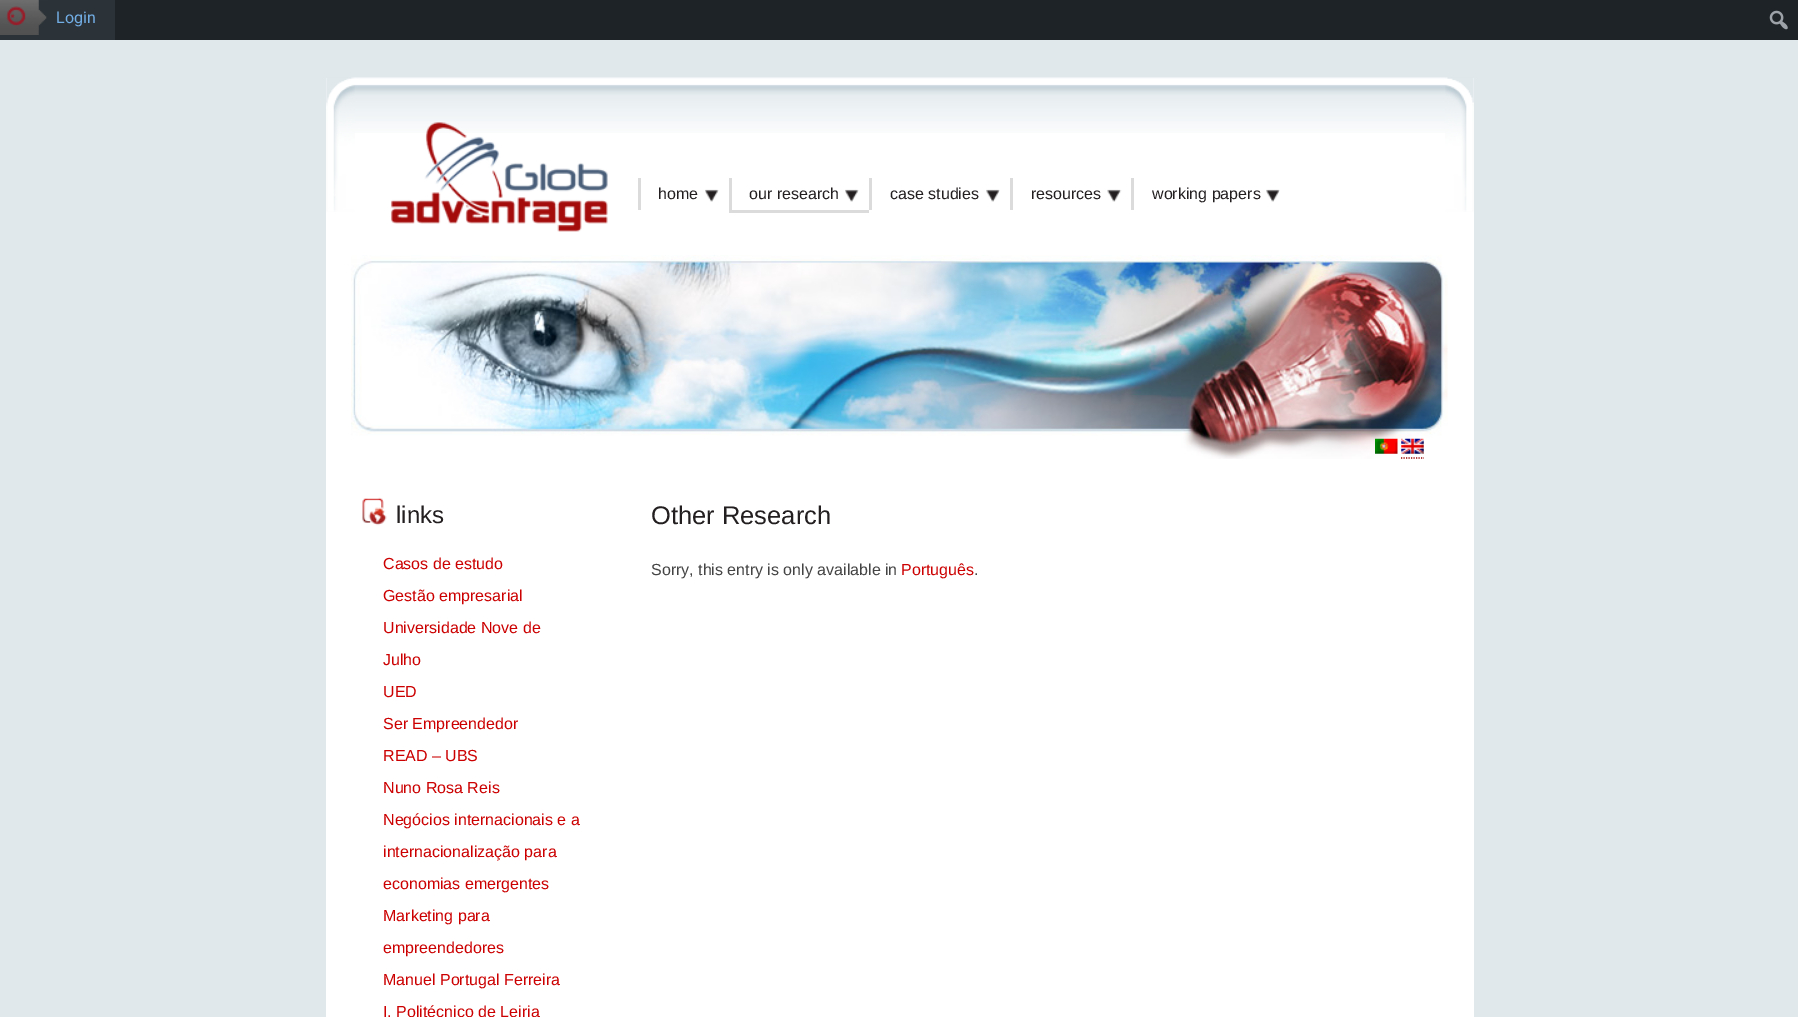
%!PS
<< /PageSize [1798 1017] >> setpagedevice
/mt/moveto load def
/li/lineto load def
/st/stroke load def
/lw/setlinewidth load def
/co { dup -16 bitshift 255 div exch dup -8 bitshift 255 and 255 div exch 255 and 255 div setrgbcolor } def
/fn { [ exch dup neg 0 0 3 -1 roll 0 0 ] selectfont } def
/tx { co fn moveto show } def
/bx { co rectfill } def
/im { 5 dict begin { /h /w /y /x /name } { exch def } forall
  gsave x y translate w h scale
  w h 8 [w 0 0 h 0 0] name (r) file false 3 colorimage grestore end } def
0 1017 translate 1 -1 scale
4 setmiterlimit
0 0 1798 1017 16#E0E8EC bx
115 0 1683 40 16#1D2327 bx
0 0 115 40 16#2C3338 bx
(media/1.raw) 0 0 47 35 im
(media/2.raw) 6 6 20 20 im
(media/3.raw) 1769 10 19 20 im
326 78 29 177 16#FFFFFF bx
(media/4.raw) 326 77 29 135 im
355 133 1090 122 16#FFFFFF bx
(media/5.raw) 355 77 1090 56 im
(media/6.raw) 391 122 217 110 im
638 178 3 32 16#DBDBDB bx
(media/7.raw) 705 189 14 13 im
729 210 140 3 16#DBDBDB bx
729 178 3 35 16#DBDBDB bx
(media/7.raw) 845 189 14 13 im
869 178 3 32 16#DBDBDB bx
(media/8.raw) 986 189 14 13 im
1010 178 3 32 16#DBDBDB bx
(media/9.raw) 1107 189 15 13 im
1131 178 3 32 16#DBDBDB bx
(media/10.raw) 1266 189 14 13 im
1445 78 29 177 16#FFFFFF bx
(media/11.raw) 1445 77 29 135 im
326 255 1148 762 16#FFFFFF bx
(media/12.raw) 351 255 1097 204 im
(media/13.raw) 1375 438 23 16 im
(media/14.raw) 1401 438 23 16 im
16#990000 co
1.2 lw
[1.25 1.25] 0 setdash
1401 458 mt 1424 458 li st
(media/15.raw) 362 497 25 29 im
(Login) 56 23 /Roboto-Regular 16 16#72AEE6 tx
(home) 658 199 /LiberationSans-Regular 16 16#231F20 tx
(our research) 749 199 /LiberationSans-Regular 16 16#231F20 tx
(case studies) 890 199 /LiberationSans-Regular 16 16#231F20 tx
(resources) 1031 199 /LiberationSans-Regular 16 16#231F20 tx
(working papers) 1152 199 /LiberationSans-Regular 16 16#231F20 tx
(links) 396 523 /LiberationSans-Regular 24 16#231F20 tx
(Casos de estudo) 383 569 /LiberationSans-Regular 16 16#CC0000 tx
(Gestão empresarial) 383 601 /LiberationSans-Regular 16 16#CC0000 tx
(Universidade Nove de) 383 633 /LiberationSans-Regular 16 16#CC0000 tx
(Julho) 383 665 /LiberationSans-Regular 16 16#CC0000 tx
(UED) 383 697 /LiberationSans-Regular 16 16#CC0000 tx
(Ser Empreendedor) 383 729 /LiberationSans-Regular 16 16#CC0000 tx
(READ – UBS) 383 761 /LiberationSans-Regular 16 16#CC0000 tx
(Nuno Rosa Reis) 383 793 /LiberationSans-Regular 16 16#CC0000 tx
(Negócios internacionais e a) 383 825 /LiberationSans-Regular 16 16#CC0000 tx
(internacionalização para) 383 857 /LiberationSans-Regular 16 16#CC0000 tx
(economias emergentes) 383 889 /LiberationSans-Regular 16 16#CC0000 tx
(Marketing para) 383 921 /LiberationSans-Regular 16 16#CC0000 tx
(empreendedores) 383 953 /LiberationSans-Regular 16 16#CC0000 tx
(Manuel Portugal Ferreira) 383 985 /LiberationSans-Regular 16 16#CC0000 tx
(I. Politécnico de Leiria) 383 1017 /LiberationSans-Regular 16 16#CC0000 tx
(Other Research) 651 524 /LiberationSans-Regular 25.5 16#231F20 tx
(Sorry, this entry is only available in) 651 575 /LiberationSans-Regular 16 16#444444 tx
(Português) 901 575 /LiberationSans-Regular 16 16#CC0000 tx
(.) 974 575 /LiberationSans-Regular 16 16#444444 tx
showpage
